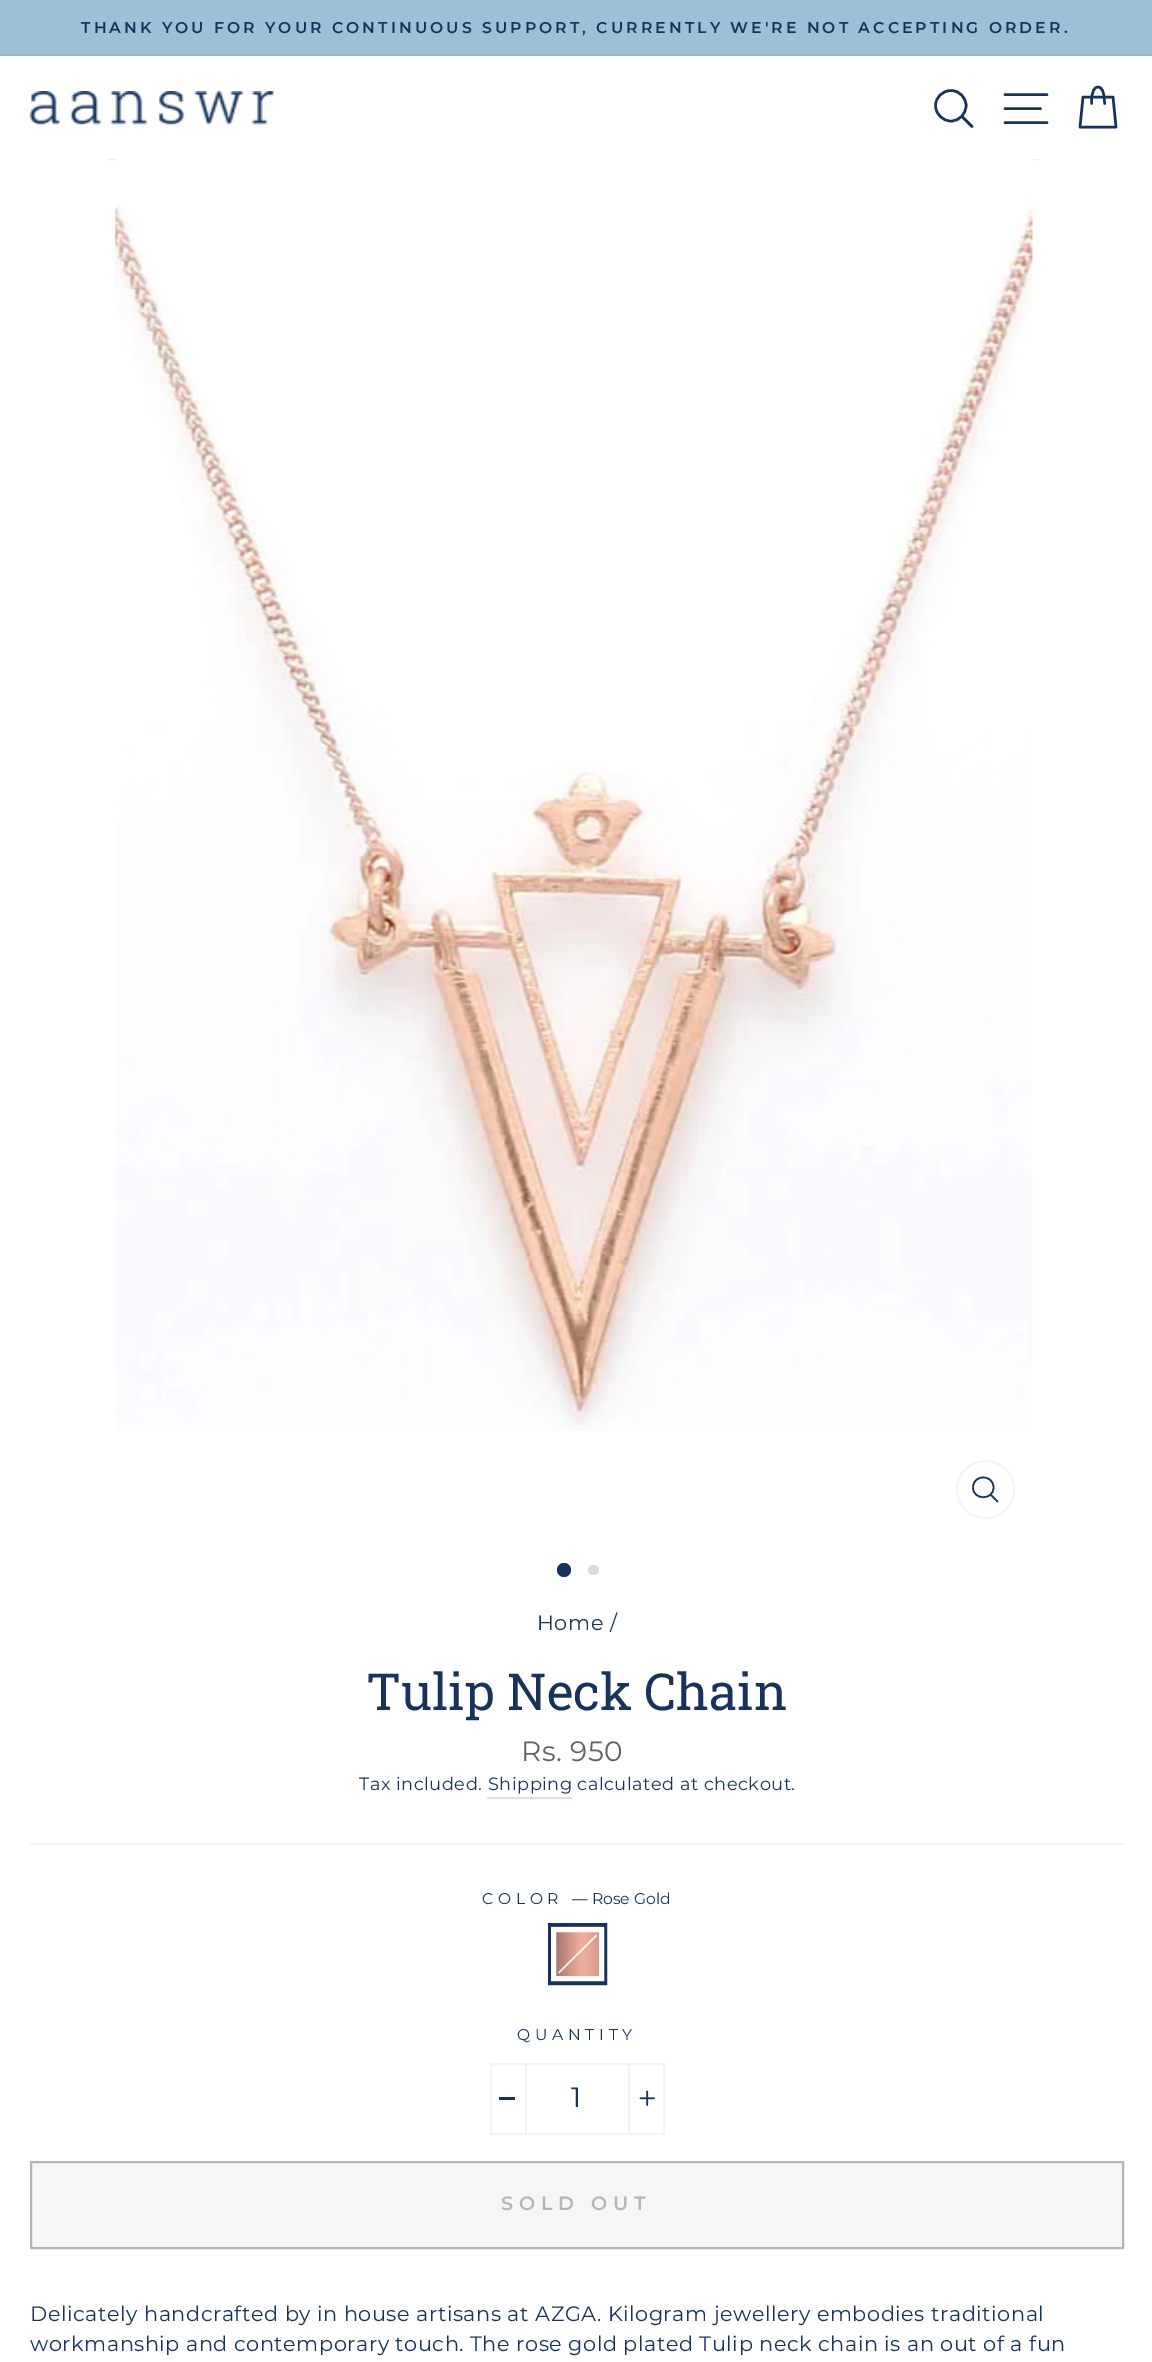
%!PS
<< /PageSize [1152 2362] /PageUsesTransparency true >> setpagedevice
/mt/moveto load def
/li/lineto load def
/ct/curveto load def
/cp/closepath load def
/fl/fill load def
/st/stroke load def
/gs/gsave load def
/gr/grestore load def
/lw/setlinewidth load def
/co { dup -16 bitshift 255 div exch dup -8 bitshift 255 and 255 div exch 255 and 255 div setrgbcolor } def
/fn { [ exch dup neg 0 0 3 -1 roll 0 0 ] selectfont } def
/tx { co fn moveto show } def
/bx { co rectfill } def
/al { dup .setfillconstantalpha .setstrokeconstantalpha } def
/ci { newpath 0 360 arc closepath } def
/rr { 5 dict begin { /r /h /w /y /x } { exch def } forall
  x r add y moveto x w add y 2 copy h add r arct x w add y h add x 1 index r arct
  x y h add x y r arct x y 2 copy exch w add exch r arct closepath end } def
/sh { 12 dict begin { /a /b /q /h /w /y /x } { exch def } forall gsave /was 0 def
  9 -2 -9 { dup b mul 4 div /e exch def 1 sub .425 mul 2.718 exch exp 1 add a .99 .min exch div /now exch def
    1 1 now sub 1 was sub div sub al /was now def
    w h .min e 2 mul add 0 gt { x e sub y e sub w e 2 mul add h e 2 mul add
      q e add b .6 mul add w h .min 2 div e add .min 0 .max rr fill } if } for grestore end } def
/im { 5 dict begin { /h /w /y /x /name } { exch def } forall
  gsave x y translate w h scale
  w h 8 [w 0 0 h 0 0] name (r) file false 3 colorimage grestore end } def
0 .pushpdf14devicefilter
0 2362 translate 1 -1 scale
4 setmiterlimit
0 0 1152 2362 16#FFFFFF bx
0 0 1152 56 16#9FBFD6 bx
gs
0 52 mt 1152 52 li 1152 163 li 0 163 li cp 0 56 mt 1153 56 li 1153 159 li 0 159 li cp eoclip newpath
16#000000 co
0 56 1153 103 0 1 .2 sh
gr
(media/1.raw) 29 91 246 34 im
16#18335B co
2.5 lw
1 setlinecap
1 setlinejoin
966 105.5 mt 966 114 959.5 121 951 121 ct 942.5 121 935.5 114 935.5 105.5 ct 935.5 97.5 942.5 90.5 951 90.5 ct 959.5 90.5 966 97.5 966 105.5 ct cp 972 126.5 mt 962 116.5 li st
1005 94.5 mt 1047 94.5 li 1005 108.5 mt 1040.5 108.5 li 1005 122.5 mt 1047 122.5 li st
1091.5 103.5 mt 1091.5 90.5 1094.5 87 1098 87 ct 1101.5 87 1104.5 90.5 1104.5 103.5 ct 1083 97 mt 1113 97 li 1116 127 li 1080 127 li cp st
0 159 109 2 16#FFFFFF bx
116 159 917 2 16#FFFFFF bx
(media/2.raw) 115 159 918 1272 im
16#F4F4F4 co
2 lw
0 setlinecap
0 setlinejoin
985.5 1489.5 28.5 ci st
16#18335B co
1.6 lw
1 setlinecap
1 setlinejoin
993.5 1487.5 mt 993.5 1500.5 973 1500.5 973 1487.5 ct 973 1474 993.5 1474 993.5 1487.5 ct cp 997.5 1501.5 mt 990.5 1494.5 li st
1040 159 112 2 16#FFFFFF bx
1039 159 1 1 16#FBFBFB bx
16#18335B co
564 1570 7 ci fl
16#D5DAE1 co
588 1565 11 10 5 rr fl
487 1797 85 2 16#DCE0E6 bx
30 1843 1094 2 16#F4F4F4 bx
16#18335B co
4 lw
0 setlinecap
0 setlinejoin
550 1925 55 58 rectstroke
(media/3.raw) 551 1926 53 50 im
16#F4F4F4 co
596 1934.5 mt 597 1936 li 559 1973.5 li 558 1972.5 li cp fl
16#FFFFFF co
5 lw
553.5 1929.5 48 49 rectstroke
16#F4F4F4 co
2 lw
491 2064 173 70 rectstroke
525 2063 2 72 16#F2F2F2 bx
499 2097 16 3 16#18335B bx
628 2063 2 72 16#F2F2F2 bx
(media/4.raw) 639 2090 16 16 im
16#F6F6F6 co
31 2162 mt 1123 2162 li 1123 2248 li 31 2248 li cp gs fl gr
16#B6B6B6 co
st
/Montserrat-SemiBold 15.62 fn
16#18335B co
81 33 mt -.25 0 32 3.12 0 (THANK YOU FOR YOUR CONTINUOUS SUPPORT, CURRENTLY WE'RE NOT ACCEPTING ORDER.) awidthshow
/Montserrat-Regular 20.8 fn
537 1630 mt .52 0 (Home /) ashow
(Tulip Neck Chain) 366 1710 /RobotoSlab-Regular 51 16#18335B tx
/Montserrat-Regular 28 fn
16#616161 co
521 1761 mt .52 0 (Rs. 950) ashow
/Montserrat-Regular 17.75 fn
16#18335B co
359 1790 mt .52 0 (Tax included. Shipping) ashow
577 1790 mt .52 0 (calculated at checkout.) ashow
/Montserrat-Regular 15.62 fn
482 1904 mt 4.75 0 (COLOR) ashow
(— Rose Gold) 572 1904 /Montserrat-Regular 15.62 16#18335B tx
517 2040 mt 4.75 0 (QUANTITY) ashow
/Montserrat-Regular 28 fn
571 2107 mt 1 0 (1) ashow
/Montserrat-SemiBold 19.25 fn
16#B6B6B6 co
501 2210 mt 5.75 0 (SOLD OUT) ashow
/Montserrat-Regular 20.8 fn
16#18335B co
30 2321 mt .52 0 (Delicately handcrafted by in house artisans at AZGA. Kilogram jewellery embodies traditional) ashow
30 2351 mt .52 0 (workmanship and contemporary touch.) ashow
470 2351 mt .52 0 (The rose gold plated Tulip neck chain is an out of a fun) ashow
.poppdf14devicefilter showpage
